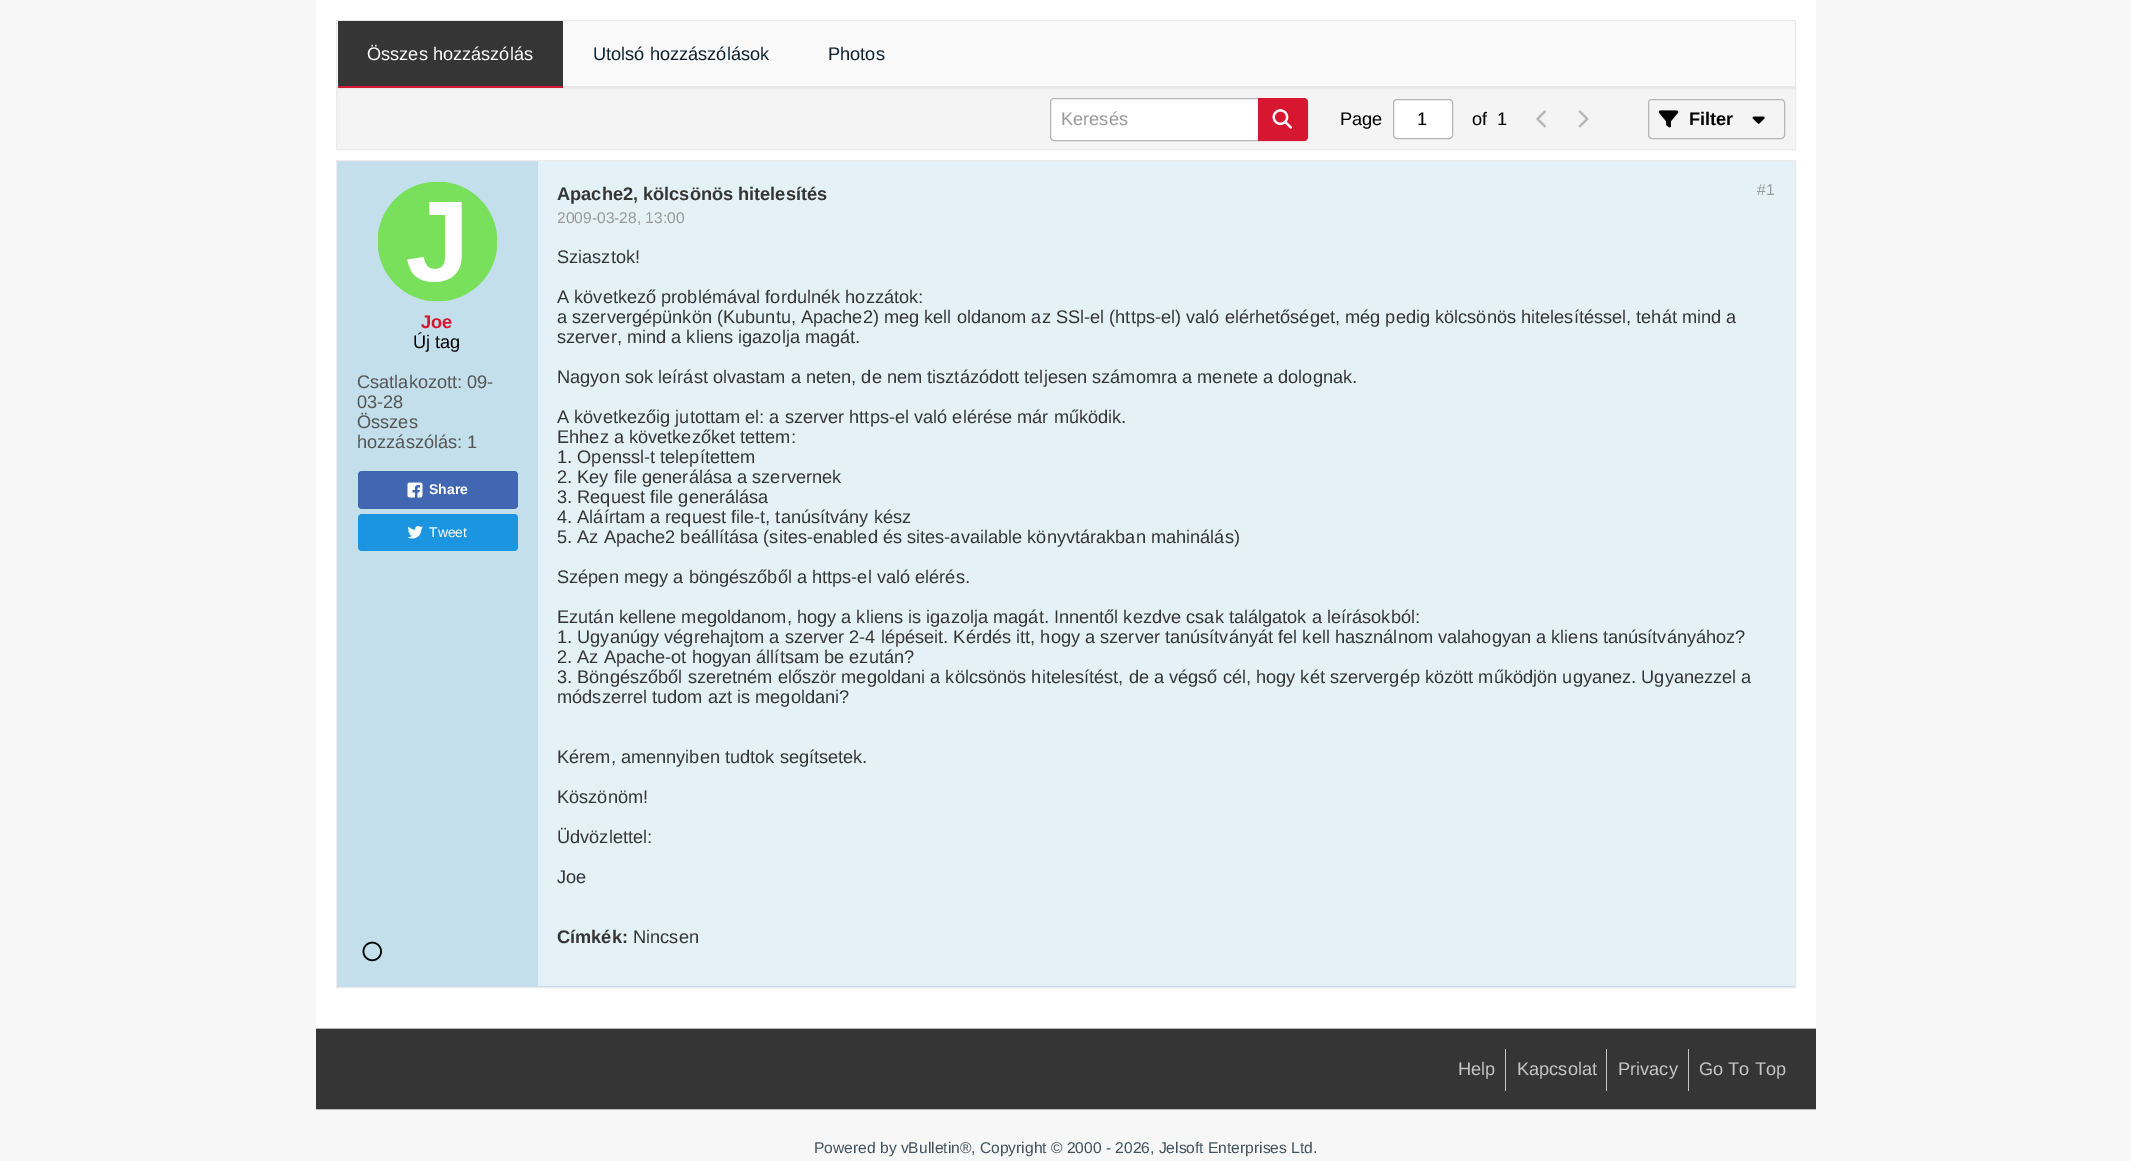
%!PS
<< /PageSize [2131 1161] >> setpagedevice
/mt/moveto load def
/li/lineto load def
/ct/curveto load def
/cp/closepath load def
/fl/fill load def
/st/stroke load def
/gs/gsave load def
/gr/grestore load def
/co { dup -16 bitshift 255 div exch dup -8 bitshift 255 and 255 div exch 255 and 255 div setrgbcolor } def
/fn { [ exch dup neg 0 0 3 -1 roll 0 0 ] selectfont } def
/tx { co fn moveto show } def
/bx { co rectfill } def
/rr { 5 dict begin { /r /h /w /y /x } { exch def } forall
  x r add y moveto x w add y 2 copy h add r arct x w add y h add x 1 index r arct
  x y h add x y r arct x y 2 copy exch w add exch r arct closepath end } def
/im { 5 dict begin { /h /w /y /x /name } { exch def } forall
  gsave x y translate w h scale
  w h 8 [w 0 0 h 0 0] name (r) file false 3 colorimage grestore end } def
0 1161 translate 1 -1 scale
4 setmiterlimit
0 0 2131 1161 16#F7F7F7 bx
316 0 1500 1028 16#FFFFFF bx
563 21 1232 65 16#F9F9F9 bx
336 20 1460 1 16#E7E7E7 bx
1795 20 1 69 16#E7E7E7 bx
336 86 1460 2 16#E7E7E7 bx
336 20 1 69 16#E7E7E7 bx
338 21 225 65 16#353535 bx
338 86 225 2 16#D71730 bx
16#F5F4F4 co
336.5 88.5 mt 1795.5 88.5 li 1795.5 149.5 li 336.5 149.5 li cp gs fl gr
16#ECEAEA co
st
16#FFFFFF co
1050.5 98.5 257 42 3.5 rr gs fl gr
16#B7B7B7 co
st
16#D71730 co
1258 98 mt 1304 98 li 1306 98 1308 100 1308 102 ct 1308 137 li 1308 139 1306 141 1304 141 ct 1258 141 li cp fl
(media/1.raw) 1272 109 20 20 im
16#FFFFFF co
1393.5 99.5 59 39 3.5 rr gs fl gr
16#B7B7B7 co
st
(media/2.raw) 1536 110 10 18 im
(media/3.raw) 1578 110 11 18 im
1648.5 99.5 136 39 3.5 rr st
(media/4.raw) 1658 110 21 18 im
(media/5.raw) 1752 116 13 8 im
16#C2DFEB co
336.5 160.5 mt 1795.5 160.5 li 1795.5 987.5 li 336.5 987.5 li cp gs fl gr
16#ECEAEA co
st
(media/6.raw) 378 182 120 120 im
16#4267B2 co
358 471 160 38 4 rr fl
(media/7.raw) 407 482 16 16 im
16#1B95E0 co
358 514 160 37 4 rr fl
(media/8.raw) 407 526 16 13 im
(media/9.raw) 362 941 20 21 im
538 161 1257 825 16#E4F1F6 bx
316 1029 1500 80 16#353535 bx
316 1028 1500 1 16#B7B7B7 bx
316 1109 1500 1 16#B7B7B7 bx
1505 1049 1 42 16#C6C6C6 bx
1606 1049 1 42 16#C6C6C6 bx
1688 1049 1 42 16#C6C6C6 bx
(Összes hozzászólás) 367 60 /LiberationSans-Regular 18.2 16#FFFFFF tx
(Utolsó hozzászólások) 593 60 /LiberationSans-Regular 18.2 16#0F2332 tx
(Photos) 828 60 /LiberationSans-Regular 18.2 16#0F2332 tx
(Keresés) 1061 125 /LiberationSans-Regular 18.2 16#999999 tx
(Page) 1340 125 /LiberationSans-Regular 18.2 16#000000 tx
(1) 1417 125 /LiberationSans-Regular 18.2 16#000000 tx
(of) 1472 125 /LiberationSans-Regular 18.2 16#000000 tx
(1) 1497 125 /LiberationSans-Regular 18.2 16#000000 tx
(Filter) 1689 125 /LiberationSans-Bold 18.2 16#000000 tx
(Joe) 421 328 /LiberationSans-Bold 18.2 16#D71730 tx
(Új tag) 413 348 /LiberationSans-Regular 18.2 16#000000 tx
(Csatlakozott: 09-) 357 388 /LiberationSans-Regular 18.2 16#555555 tx
(03-28) 357 408 /LiberationSans-Regular 18.2 16#555555 tx
(Összes) 357 428 /LiberationSans-Regular 18.2 16#555555 tx
(hozzászólás: 1) 357 448 /LiberationSans-Regular 18.2 16#555555 tx
(Share) 429 494 /LiberationSans-Bold 14 16#FFFFFF tx
(Tweet) 429 537 /LiberationSans-Regular 14 16#FFFFFF tx
(Apache2, kölcsönös hitelesítés) 557 200 /LiberationSans-Bold 18.2 16#353535 tx
gs
558 181 1200 45 rectclip
(2009-03-28, 13:00) 557 223 /LiberationSans-Regular 15.6 16#999999 tx
gr
(#1) 1757 195 /LiberationSans-Regular 15.6 16#999999 tx
(Sziasztok!) 557 263 /LiberationSans-Regular 18.2 16#353535 tx
(A következő problémával fordulnék hozzátok:) 557 303 /LiberationSans-Regular 18.2 16#353535 tx
(a szervergépünkön \(Kubuntu, Apache2\) meg kell oldanom az SSl-el \(https-el\) való elérhetőséget, még pedig kölcsönös hitelesítéssel, tehát mind a) 557 323 /LiberationSans-Regular 18.2 16#353535 tx
(szerver, mind a kliens igazolja magát.) 557 343 /LiberationSans-Regular 18.2 16#353535 tx
(Nagyon sok leírást olvastam a neten, de nem tisztázódott teljesen számomra a menete a dolognak.) 557 383 /LiberationSans-Regular 18.2 16#353535 tx
(A következőig jutottam el: a szerver https-el való elérése már működik.) 557 423 /LiberationSans-Regular 18.2 16#353535 tx
(Ehhez a következőket tettem:) 557 443 /LiberationSans-Regular 18.2 16#353535 tx
(1. Openssl-t telepítettem) 557 463 /LiberationSans-Regular 18.2 16#353535 tx
(2. Key file generálása a szervernek) 557 483 /LiberationSans-Regular 18.2 16#353535 tx
(3. Request file generálása) 557 503 /LiberationSans-Regular 18.2 16#353535 tx
(4. Aláírtam a request file-t, tanúsítvány kész) 557 523 /LiberationSans-Regular 18.2 16#353535 tx
(5. Az Apache2 beállítása \(sites-enabled és sites-available könyvtárakban mahinálás\)) 557 543 /LiberationSans-Regular 18.2 16#353535 tx
(Szépen megy a böngészőből a https-el való elérés.) 557 583 /LiberationSans-Regular 18.2 16#353535 tx
(Ezután kellene megoldanom, hogy a kliens is igazolja magát. Innentől kezdve csak találgatok a leírásokból:) 557 623 /LiberationSans-Regular 18.2 16#353535 tx
(1. Ugyanúgy végrehajtom a szerver 2-4 lépéseit. Kérdés itt, hogy a szerver tanúsítványát fel kell használnom valahogyan a kliens tanúsítványához?) 557 643 /LiberationSans-Regular 18.2 16#353535 tx
(2. Az Apache-ot hogyan állítsam be ezután?) 557 663 /LiberationSans-Regular 18.2 16#353535 tx
(3. Böngészőből szeretném először megoldani a kölcsönös hitelesítést, de a végső cél, hogy két szervergép között működjön ugyanez. Ugyanezzel a) 557 683 /LiberationSans-Regular 18.2 16#353535 tx
(módszerrel tudom azt is megoldani?) 557 703 /LiberationSans-Regular 18.2 16#353535 tx
(Kérem, amennyiben tudtok segítsetek.) 557 763 /LiberationSans-Regular 18.2 16#353535 tx
(Köszönöm!) 557 803 /LiberationSans-Regular 18.2 16#353535 tx
(Üdvözlettel:) 557 843 /LiberationSans-Regular 18.2 16#353535 tx
(Joe) 557 883 /LiberationSans-Regular 18.2 16#353535 tx
(Címkék:) 557 943 /LiberationSans-Bold 18.2 16#353535 tx
(Nincsen) 633 943 /LiberationSans-Regular 18.2 16#353535 tx
(Help) 1458 1075 /LiberationSans-Regular 18.2 16#C6C6C6 tx
(Kapcsolat) 1517 1075 /LiberationSans-Regular 18.2 16#C6C6C6 tx
(Privacy) 1618 1075 /LiberationSans-Regular 18.2 16#C6C6C6 tx
(Go To Top) 1699 1075 /LiberationSans-Regular 18.2 16#C6C6C6 tx
(Powered by vBulletin®, Copyright © 2000 - 2026, Jelsoft Enterprises Ltd.) 814 1153 /LiberationSans-Regular 15.6 16#43535E tx
showpage
